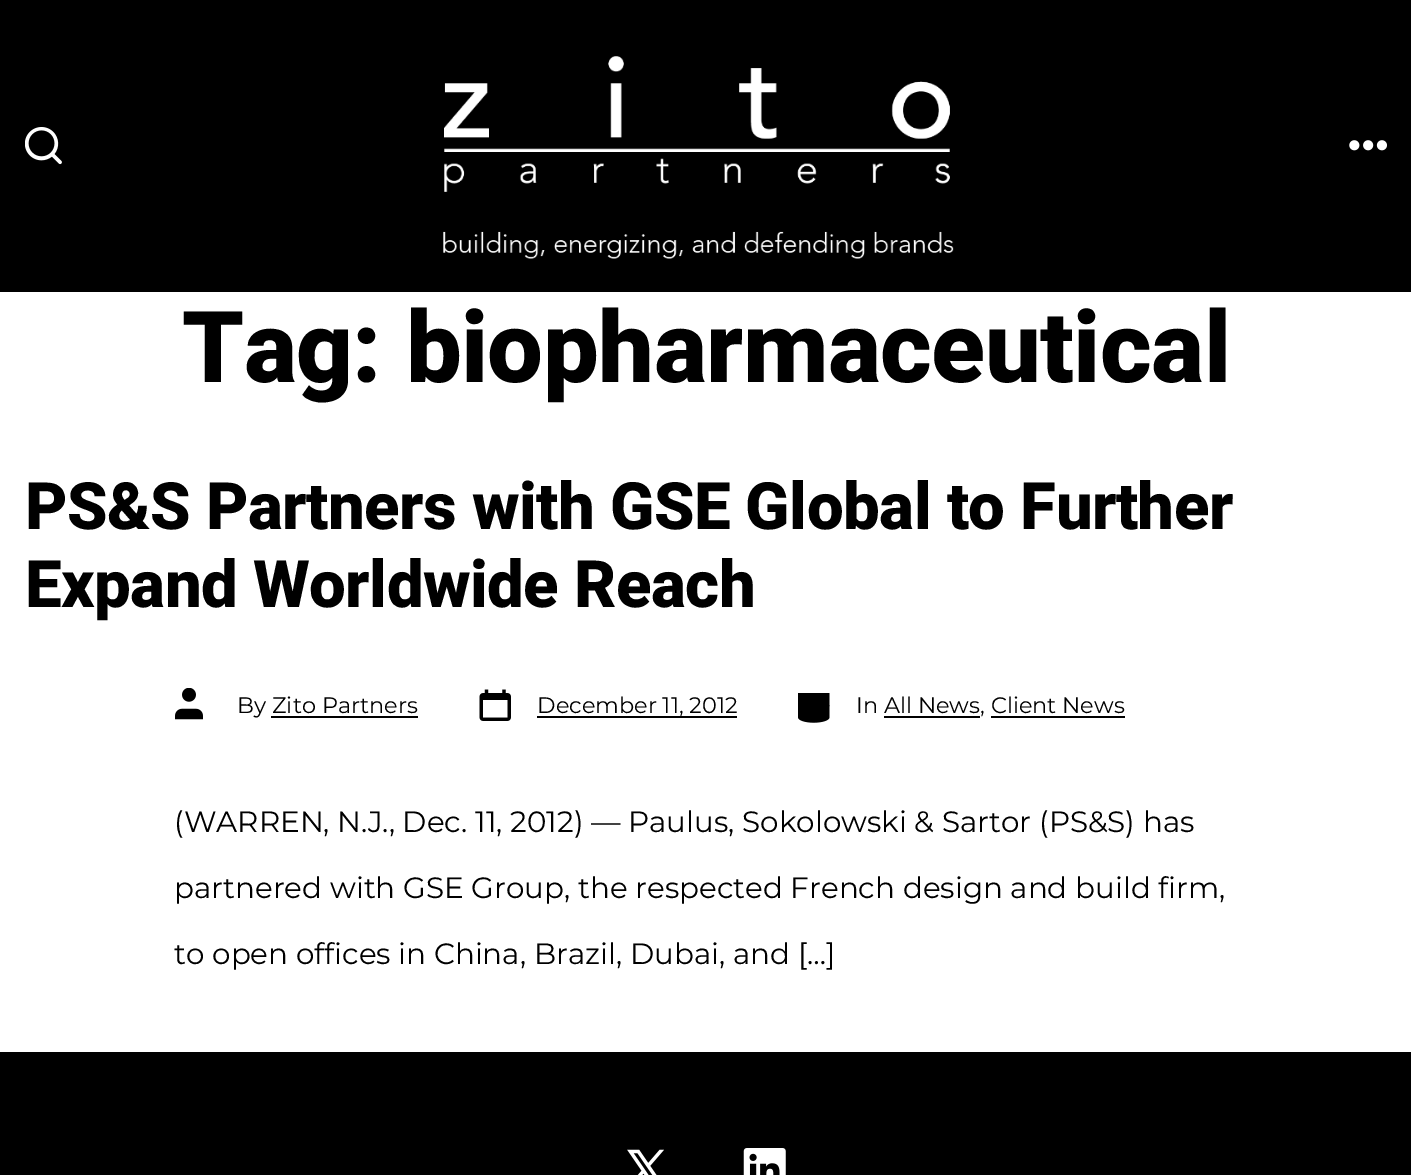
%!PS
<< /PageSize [1411 1175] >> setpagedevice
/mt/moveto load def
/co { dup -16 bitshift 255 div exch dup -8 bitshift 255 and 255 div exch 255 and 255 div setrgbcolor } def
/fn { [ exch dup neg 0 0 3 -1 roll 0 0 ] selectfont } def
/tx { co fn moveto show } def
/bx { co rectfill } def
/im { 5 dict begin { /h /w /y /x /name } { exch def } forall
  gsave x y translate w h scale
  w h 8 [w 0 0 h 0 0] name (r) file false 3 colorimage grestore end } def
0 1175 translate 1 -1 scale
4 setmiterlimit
0 0 1411 1175 16#FFFFFF bx
0 0 1411 292 16#000000 bx
(media/1.raw) 25 127 37 38 im
(media/2.raw) 443 56 511 203 im
(media/3.raw) 1349 140 38 11 im
(media/4.raw) 175 688 28 32 im
271 716 147 2 16#000000 bx
(media/5.raw) 479 689 32 32 im
537 716 200 2 16#000000 bx
(media/6.raw) 798 693 32 30 im
884 716 96 2 16#000000 bx
991 716 134 2 16#000000 bx
0 1052 1411 123 16#000000 bx
(media/7.raw) 627 1149 37 26 im
(media/8.raw) 743 1148 43 27 im
/Heebo-ExtraBold 99.25 fn
182 382 mt -.55 0 (Tag: biopharmaceutical) ashow
/Heebo-ExtraBold 65.3 fn
25 529 mt -.55 0 (PS&S Partners with GSE Global to Further) ashow
25 607 mt -.55 0 (Expand Worldwide Reach) ashow
(By Zito Partners) 237 713 /Montserrat-Regular 22.4 16#000000 tx
(December 11, 2012) 537 713 /Montserrat-Regular 22.4 16#000000 tx
(In All News, Client News) 856 713 /Montserrat-Regular 22.4 16#000000 tx
(\(WARREN, N.J., Dec. 11, 2012\) — Paulus, Sokolowski & Sartor \(PS&S\) has) 174 832 /Montserrat-Regular 29.4 16#000000 tx
(partnered with GSE Group, the respected French design and build firm,) 174 898 /Montserrat-Regular 29.4 16#000000 tx
(to open offices in China, Brazil, Dubai, and […]) 174 964 /Montserrat-Regular 29.4 16#000000 tx
showpage
